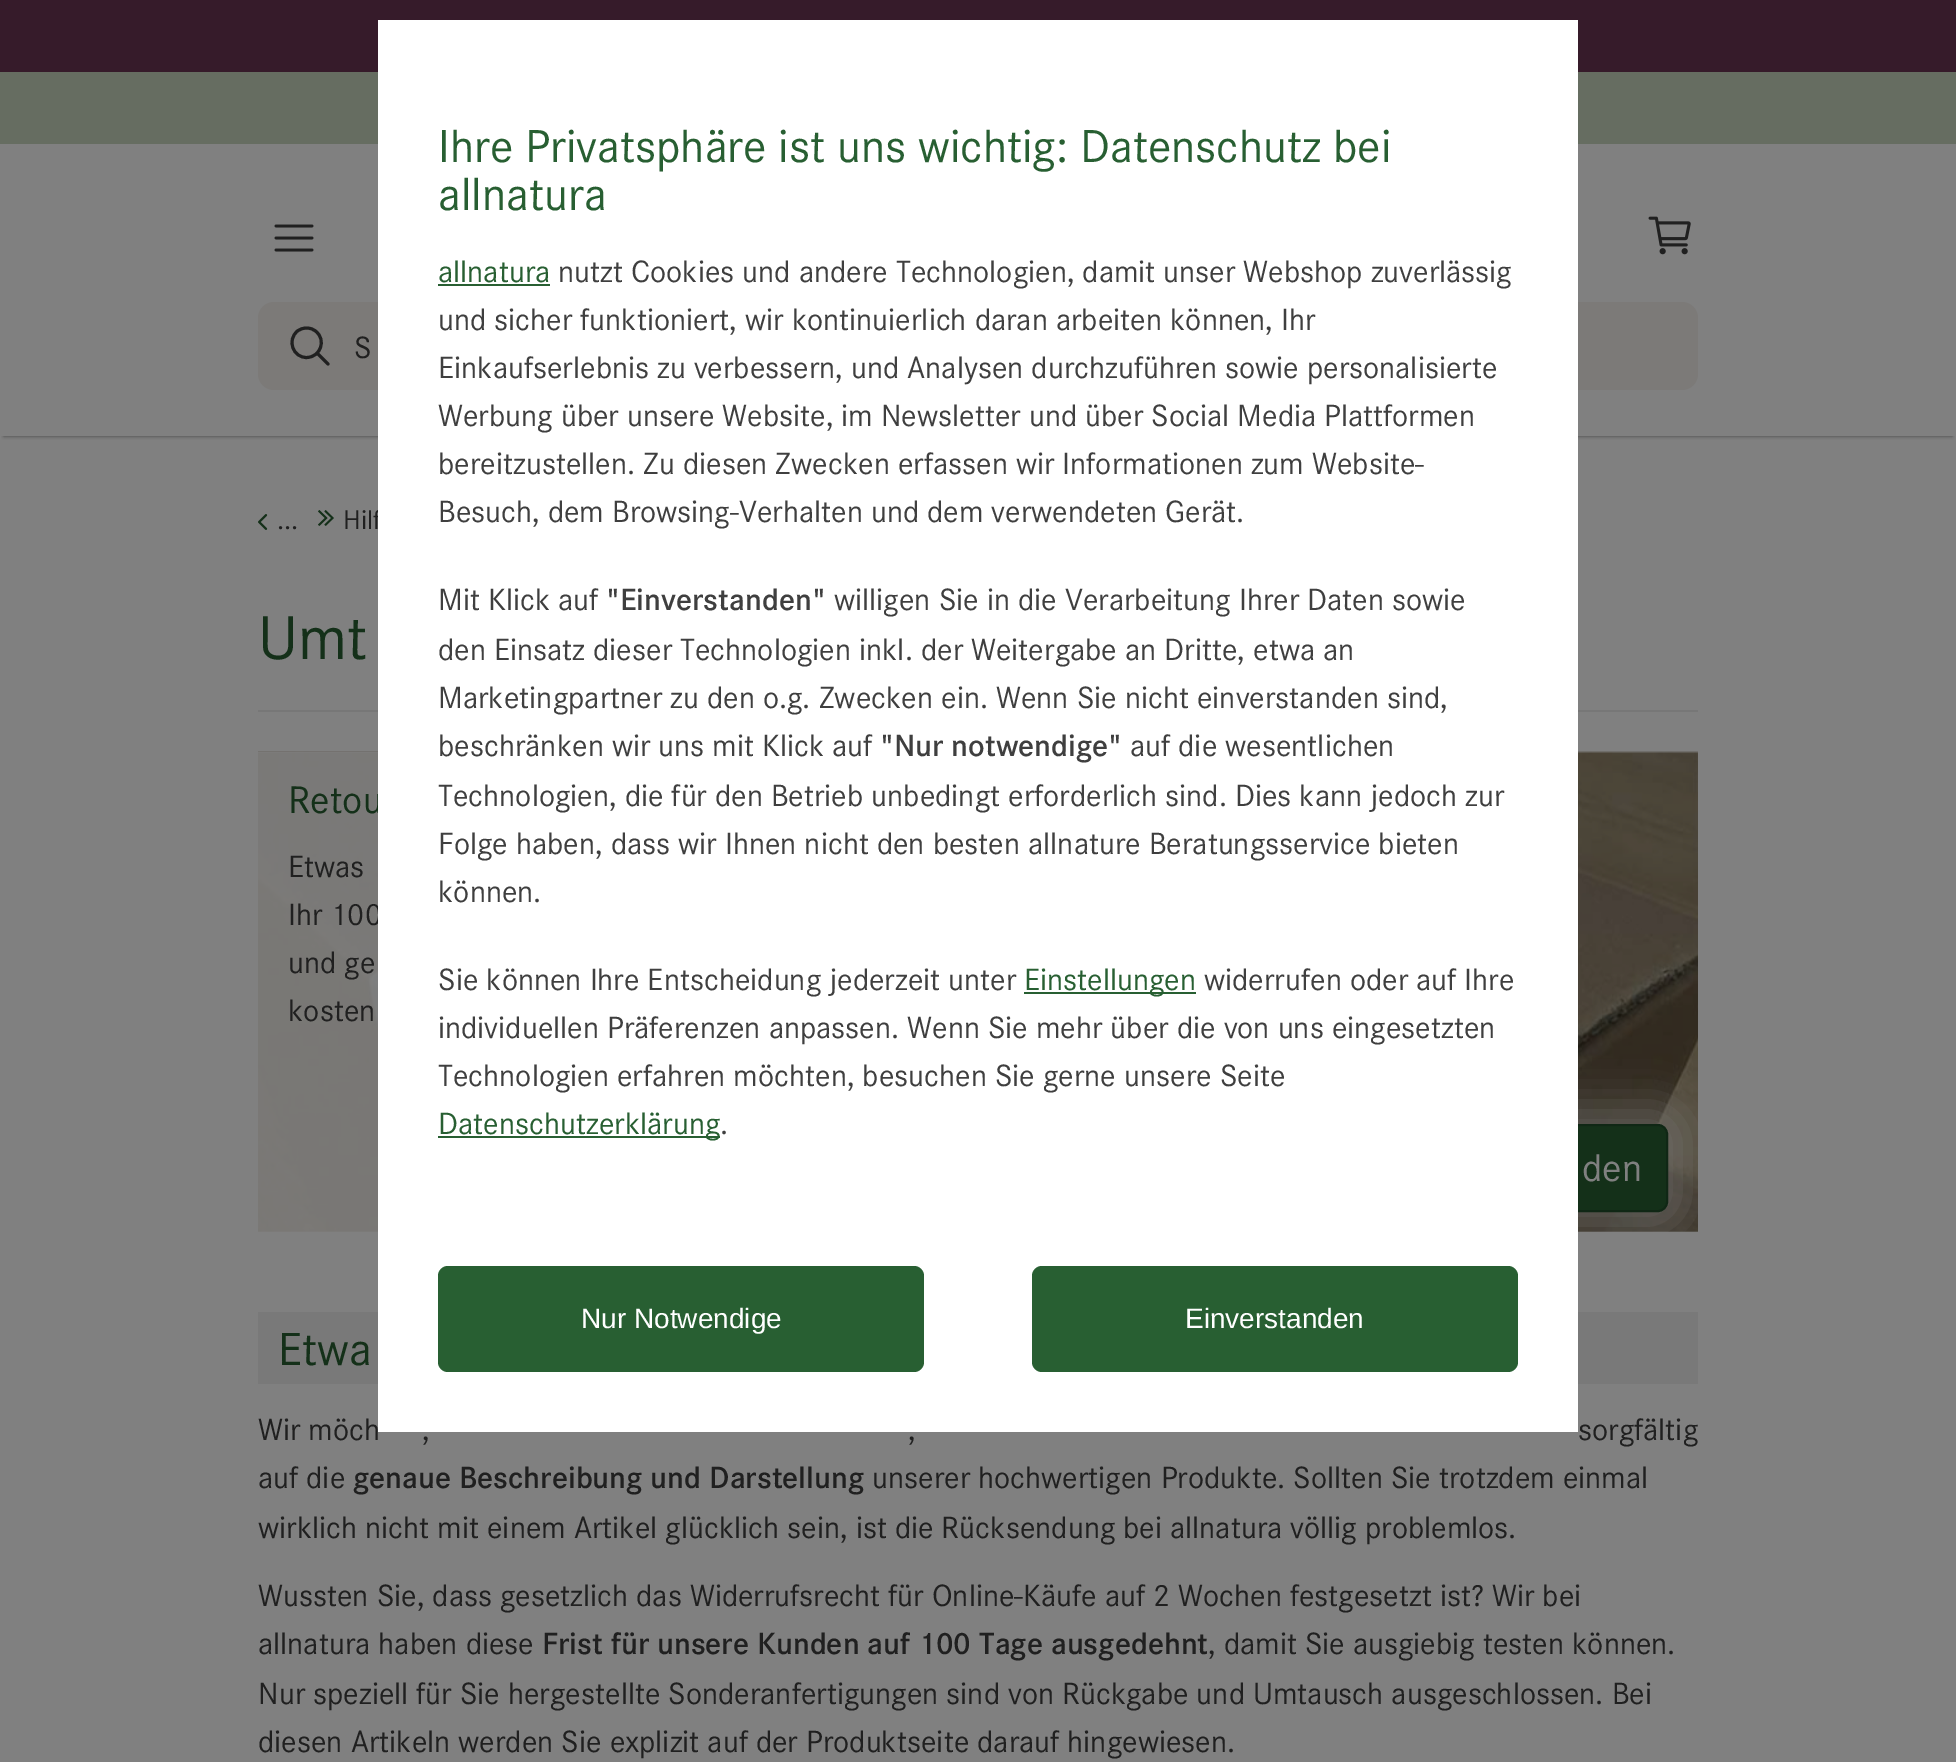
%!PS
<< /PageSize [1956 1762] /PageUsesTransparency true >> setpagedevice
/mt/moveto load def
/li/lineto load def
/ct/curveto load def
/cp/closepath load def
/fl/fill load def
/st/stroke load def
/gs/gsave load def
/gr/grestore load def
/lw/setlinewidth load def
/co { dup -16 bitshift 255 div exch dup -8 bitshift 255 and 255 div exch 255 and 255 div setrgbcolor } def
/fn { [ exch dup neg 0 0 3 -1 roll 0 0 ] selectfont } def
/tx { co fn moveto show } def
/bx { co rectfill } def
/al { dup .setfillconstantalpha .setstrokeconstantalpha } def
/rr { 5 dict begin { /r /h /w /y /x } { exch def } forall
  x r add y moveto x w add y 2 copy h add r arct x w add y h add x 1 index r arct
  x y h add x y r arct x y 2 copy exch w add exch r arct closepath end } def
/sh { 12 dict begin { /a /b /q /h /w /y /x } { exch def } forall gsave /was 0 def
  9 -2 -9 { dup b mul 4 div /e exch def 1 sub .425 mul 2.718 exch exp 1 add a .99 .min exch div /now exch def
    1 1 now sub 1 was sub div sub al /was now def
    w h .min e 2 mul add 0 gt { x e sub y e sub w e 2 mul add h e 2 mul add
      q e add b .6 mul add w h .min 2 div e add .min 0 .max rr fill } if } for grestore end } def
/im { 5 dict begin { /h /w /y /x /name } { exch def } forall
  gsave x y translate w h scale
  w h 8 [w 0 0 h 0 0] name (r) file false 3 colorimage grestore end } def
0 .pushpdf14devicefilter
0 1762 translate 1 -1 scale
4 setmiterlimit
0 0 1956 1762 16#808080 bx
gs
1 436 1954 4 rectclip
16#404040 co
4 8 1948 428 0 2 1 sh
gr
0 0 1956 72 16#361B2A bx
0 72 1956 72 16#666D61 bx
(media/1.raw) 274 224 40 28 im
(media/2.raw) 1648 216 43 39 im
16#7C7A78 co
258 302 1440 88 16 rr fl
16#202020 co
3 lw
306.5 328 mt 303.5 328 300 329 297.5 331 ct 286.5 340 293 358 307 357.5 ct 320.5 357 326.5 340 316 331.5 ct 313.5 329 310 328 306.5 328 ct cp st
1 setlinecap
317.5 353.5 mt 328 364 li st
(media/3.raw) 258 514 10 16 im
(media/4.raw) 318 510 16 16 im
258 710 1440 2 16#777777 bx
(media/5.raw) 258 751 1440 481 im
0.85 al
16#808080 co
258 752 mt 758 752 li 688 1232 li 258 1232 li cp fl
1 al
1302 1104 386 128 30 20 .5 sh
16#143019 co
1323 1125 344 86 9 rr gs fl gr
16#102715 co
2 lw
0 setlinecap
st
258 1312 1440 72 16#797979 bx
(S) 354 358 /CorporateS-Regular 32 16#202020 tx
(...) 277 529 /CorporateS-Regular 28 16#202020 tx
(Hilf) 343 529 /CorporateS-Regular 28 16#202020 tx
(Umt) 258 659 /CorporateS-Regular 64 16#143019 tx
(Retou) 288 813 /CorporateS-Regular 40 16#143019 tx
(Etwas) 288 877 /CorporateS-Regular 32 16#202020 tx
(Ihr 100) 288 925 /CorporateS-Regular 32 16#202020 tx
378 20 1200 1412 16#FFFFFF bx
16#285F32 co
438 1266 486 106 10 rr fl
(Nur Notwendige) 581 1328 /LiberationSans-Regular 28 16#FFFFFF tx
16#285F32 co
1032 1266 486 106 10 rr fl
(Einverstanden) 1185 1328 /LiberationSans-Regular 28 16#FFFFFF tx
(.) 720 1134 /CorporateS-Regular 32 16#3F3F3F tx
438 1136 282 2 16#285F32 bx
(Datenschutzerklärung) 438 1134 /CorporateS-Regular 32 16#285F32 tx
(Technologien erfahren möchten, besuchen Sie gerne unsere Seite) 438 1086 /CorporateS-Regular 32 16#3F3F3F tx
(individuellen Präferenzen anpassen. Wenn Sie mehr über die von uns eingesetzten) 438 1038 /CorporateS-Regular 32 16#3F3F3F tx
(widerrufen oder auf Ihre) 1204 990 /CorporateS-Regular 32 16#3F3F3F tx
1024 992 172 2 16#285F32 bx
(Einstellungen) 1024 990 /CorporateS-Regular 32 16#285F32 tx
(Sie können Ihre Entscheidung jederzeit unter) 438 990 /CorporateS-Regular 32 16#3F3F3F tx
(können.) 438 902 /CorporateS-Regular 32 16#3F3F3F tx
(Folge haben, dass wir Ihnen nicht den besten allnature Beratungsservice bieten) 438 854 /CorporateS-Regular 32 16#3F3F3F tx
(Technologien, die für den Betrieb unbedingt erforderlich sind. Dies kann jedoch zur) 438 806 /CorporateS-Regular 32 16#3F3F3F tx
(auf die wesentlichen) 1130 756 /CorporateS-Regular 32 16#3F3F3F tx
("Nur notwendige") 880 756 /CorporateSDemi-Regular 32 16#3F3F3F tx
(beschränken wir uns mit Klick auf) 438 756 /CorporateS-Regular 32 16#3F3F3F tx
(Marketingpartner zu den o.g. Zwecken ein. Wenn Sie nicht einverstanden sind,) 438 708 /CorporateS-Regular 32 16#3F3F3F tx
(den Einsatz dieser Technologien inkl. der Weitergabe an Dritte, etwa an) 438 660 /CorporateS-Regular 32 16#3F3F3F tx
(willigen Sie in die Verarbeitung Ihrer Daten sowie) 834 610 /CorporateS-Regular 32 16#3F3F3F tx
("Einverstanden") 606 610 /CorporateSDemi-Regular 32 16#3F3F3F tx
(Mit Klick auf) 438 610 /CorporateS-Regular 32 16#3F3F3F tx
(Besuch, dem Browsing-Verhalten und dem verwendeten Gerät.) 438 522 /CorporateS-Regular 32 16#3F3F3F tx
(bereitzustellen. Zu diesen Zwecken erfassen wir Informationen zum Website-) 438 474 /CorporateS-Regular 32 16#3F3F3F tx
(Werbung über unsere Website, im Newsletter und über Social Media Plattformen) 438 426 /CorporateS-Regular 32 16#3F3F3F tx
(Einkaufserlebnis zu verbessern, und Analysen durchzuführen sowie personalisierte) 438 378 /CorporateS-Regular 32 16#3F3F3F tx
(und sicher funktioniert, wir kontinuierlich daran arbeiten können, Ihr) 438 330 /CorporateS-Regular 32 16#3F3F3F tx
(nutzt Cookies und andere Technologien, damit unser Webshop zuverlässig) 558 282 /CorporateS-Regular 32 16#3F3F3F tx
(allnatura) 438 282 /CorporateS-Regular 32 16#285F32 tx
438 284 112 2 16#285F32 bx
(allnatura) 438 210 /CorporateS-Regular 48 16#285F32 tx
(Ihre Privatsphäre ist uns wichtig: Datenschutz bei) 438 162 /CorporateS-Regular 48 16#285F32 tx
(und ge) 288 973 /CorporateS-Regular 32 16#202020 tx
(kosten) 288 1021 /CorporateS-Regular 32 16#202020 tx
(den) 1582 1181 /CorporateS-Regular 40 16#808080 tx
(Etwa) 278 1365 /CorporateS-Regular 48 16#143019 tx
(Wir möch) 258 1440 /CorporateS-Regular 32 16#202020 tx
(,) 422 1440 /CorporateS-Regular 32 16#202020 tx
(,) 908 1440 /CorporateS-Regular 32 16#202020 tx
(sorgfältig) 1578 1440 /CorporateS-Regular 32 16#202020 tx
(auf die) 258 1488 /CorporateS-Regular 32 16#202020 tx
(genaue Beschreibung und Darstellung) 353 1488 /CorporateSDemi-Regular 32 16#202020 tx
(unserer hochwertigen Produkte. Sollten Sie trotzdem einmal) 872 1488 /CorporateS-Regular 32 16#202020 tx
(wirklich nicht mit einem Artikel glücklich sein, ist die Rücksendung bei allnatura völlig problemlos.) 258 1538 /CorporateS-Regular 32 16#202020 tx
(Wussten Sie, dass gesetzlich das Widerrufsrecht für Online-Käufe auf 2 Wochen festgesetzt ist? Wir bei) 258 1606 /CorporateS-Regular 32 16#202020 tx
(allnatura haben diese) 258 1654 /CorporateS-Regular 32 16#202020 tx
(Frist für unsere Kunden auf 100 Tage ausgedehnt) 542 1654 /CorporateSDemi-Regular 32 16#202020 tx
(, damit Sie ausgiebig testen können.) 1208 1654 /CorporateS-Regular 32 16#202020 tx
(Nur speziell für Sie hergestellte Sonderanfertigungen sind von Rückgabe und Umtausch ausgeschlossen. Bei) 258 1704 /CorporateS-Regular 32 16#202020 tx
(diesen Artikeln werden Sie explizit auf der Produktseite darauf hingewiesen.) 258 1752 /CorporateS-Regular 32 16#202020 tx
.poppdf14devicefilter showpage
